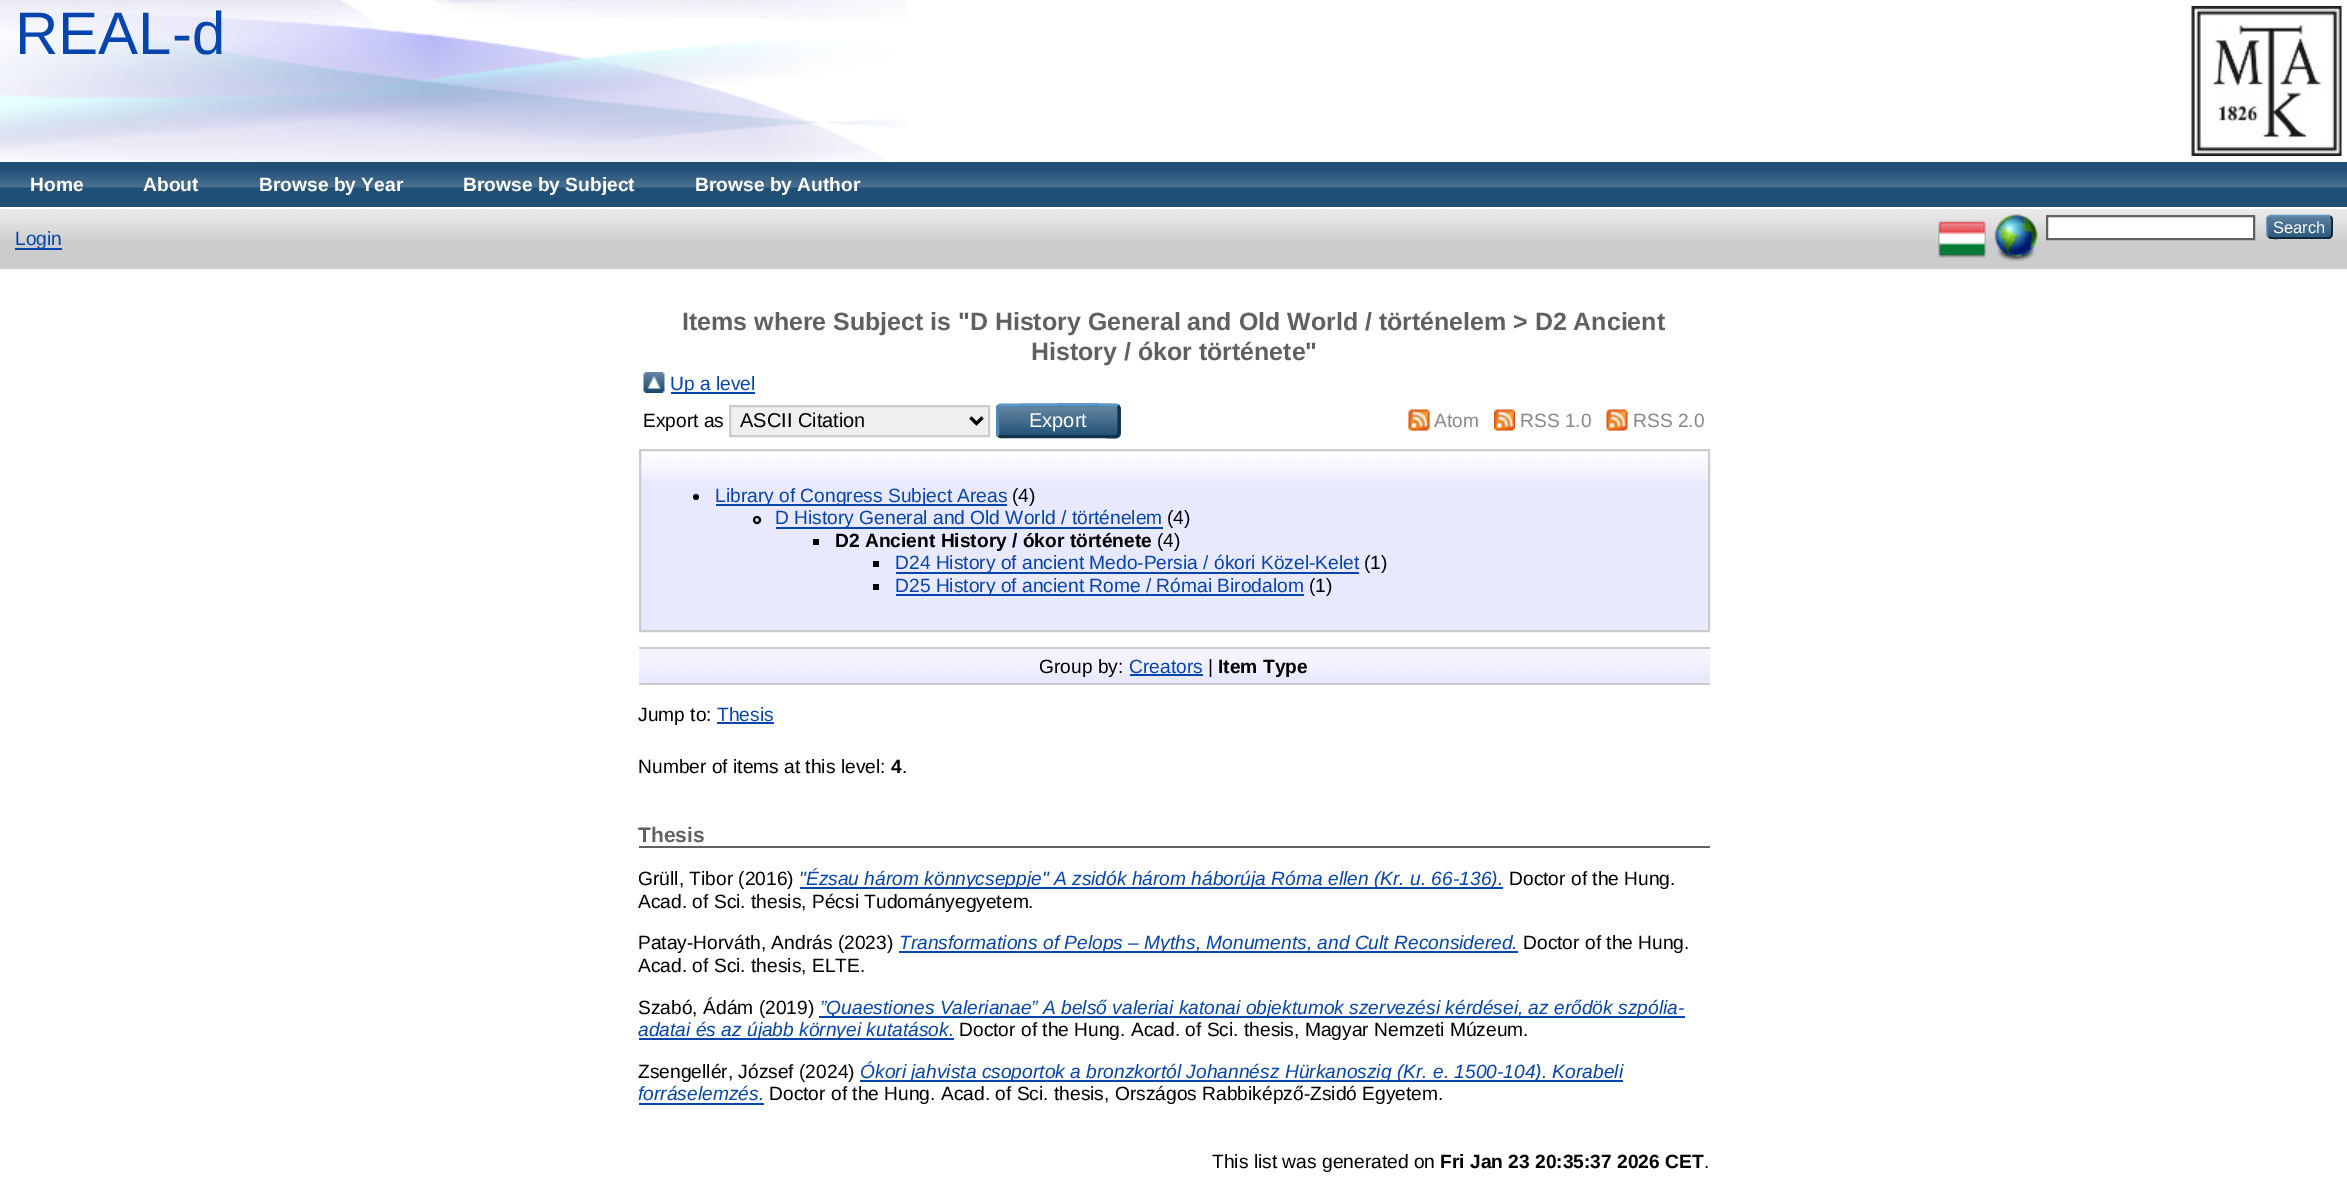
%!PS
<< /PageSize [2347 1199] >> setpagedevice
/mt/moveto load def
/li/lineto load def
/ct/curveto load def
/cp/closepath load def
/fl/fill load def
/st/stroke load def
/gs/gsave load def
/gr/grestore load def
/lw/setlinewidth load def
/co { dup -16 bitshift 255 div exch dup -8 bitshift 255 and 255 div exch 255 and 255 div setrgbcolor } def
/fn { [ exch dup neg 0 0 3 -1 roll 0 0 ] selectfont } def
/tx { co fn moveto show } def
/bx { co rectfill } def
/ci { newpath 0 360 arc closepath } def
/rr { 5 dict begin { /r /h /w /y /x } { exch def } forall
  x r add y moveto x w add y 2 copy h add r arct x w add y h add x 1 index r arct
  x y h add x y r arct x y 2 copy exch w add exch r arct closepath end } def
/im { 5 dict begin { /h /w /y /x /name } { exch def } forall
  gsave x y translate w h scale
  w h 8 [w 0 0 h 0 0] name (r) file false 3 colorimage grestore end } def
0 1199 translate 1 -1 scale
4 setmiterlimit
0 0 2347 1199 16#FFFFFF bx
(media/1.raw) 0 0 907 162 im
(media/2.raw) 2191 6 151 150 im
0 162 2347 45 16#204F76 bx
(media/3.raw) 0 171 2347 17 im
0 209 2347 60 16#CCCCCC bx
(media/4.raw) 0 209 2347 32 im
(media/5.raw) 1938 220 48 38 im
(media/6.raw) 1994 214 44 48 im
16#FFFFFF co
2047 216 mt 2254 216 li 2254 239 li 2047 239 li cp gs fl gr
16#606060 co
2 lw
st
16#1F4F76 co
2267 215 66 24 5 rr fl
(media/7.raw) 2267 215 66 23 im
16#5B97C7 co
1.5 lw
2268.5 216.5 mt 2270.5 215.5 li 2328.5 215.5 li 2330.5 216.5 li st
16#0D2131 co
2330.5 216.5 mt 2333 218.5 2332 223.5 2332 226.5 ct 2332 239.5 2332.5 238 2318.5 238 ct 2280.5 238 li 2280 238 2271 239.5 2268.5 236.5 ct st
16#5287B3 co
2268.5 236.5 mt 2267.5 236 2267 235 2267 234 ct 2267 219 li 2267 218 2267.5 217 2268.5 216.5 ct st
15 248 47 2 16#0645AD bx
(media/8.raw) 643 372 22 21 im
671 392 84 2 16#0645AD bx
16#EFEFEF co
730 406 mt 989 406 li 989 436 li 730 436 li cp gs fl gr
16#CCCCCC co
2 lw
st
16#000000 co
3 lw
970.5 417.5 mt 976.5 423.5 li 982.5 417.5 li st
16#1F4F76 co
996 404 125 34 5 rr fl
(media/9.raw) 996 406 125 29 im
16#5B97C7 co
998.5 406 mt 1000.5 405 li 1020 405 li 1030 405 1115.5 404 1117.5 405.5 ct 1118 406 li st
16#13324A co
1118 406 mt 1120 408 1119 418 1119 421 ct 1119 441.5 1121.5 436.5 1097 436.5 ct 1000.5 436.5 li 998.5 435.5 li st
16#5287B3 co
998.5 435.5 mt 998 435 997.5 434.5 997.5 433.5 ct 997.5 408 li 997.5 407 998 406.5 998.5 406 ct st
(media/10.raw) 1408 409 22 22 im
(media/11.raw) 1494 409 21 22 im
(media/12.raw) 1606 409 22 22 im
641 451 1067 179 16#E8E8FF bx
(media/13.raw) 641 451 1067 30 im
16#CCCCCC co
2 lw
640 450 1069 181 rectstroke
16#000000 co
696 497 3 ci fl
716 504 291 2 16#0645AD bx
16#000000 co
757 520 3 ci st
776 527 387 2 16#0645AD bx
813 539 6 6 16#000000 bx
873 561 6 6 16#000000 bx
896 572 463 2 16#0645AD bx
873 584 6 6 16#000000 bx
896 594 408 2 16#0645AD bx
639 649 1071 34 16#E8E8FF bx
(media/14.raw) 639 649 1071 26 im
639 647 1071 2 16#CCCCCC bx
639 683 1071 2 16#CCCCCC bx
1130 674 73 2 16#0645AD bx
717 722 57 2 16#0645AD bx
639 846 1071 2 16#606060 bx
800 887 703 2 16#0645AD bx
899 951 619 2 16#0645AD bx
819 1016 866 2 16#0645AD bx
639 1038 315 2 16#0645AD bx
860 1080 763 2 16#0645AD bx
639 1103 125 2 16#0645AD bx
(REAL-d) 15 54 /LiberationSans-Regular 60 16#0645AD tx
(Home) 30 191 /LiberationSans-Bold 19.2 16#FFFFFF tx
(About) 143 191 /LiberationSans-Bold 19.2 16#FFFFFF tx
(Browse by Year) 259 191 /LiberationSans-Bold 19.2 16#FFFFFF tx
(Browse by Subject) 463 191 /LiberationSans-Bold 19.2 16#FFFFFF tx
(Browse by Author) 695 191 /LiberationSans-Bold 19.2 16#FFFFFF tx
(Search) 2273 233 /LiberationSans-Regular 16.5 16#FFFFFF tx
(Login) 15 245 /LiberationSans-Regular 19.2 16#0645AD tx
(Items where Subject is "D History General and Old World / történelem > D2 Ancient) 682 330 /LiberationSans-Bold 24.95 16#606060 tx
(History / ókor története") 1031 360 /LiberationSans-Bold 24.95 16#606060 tx
(Up a level) 670 390 /LiberationSans-Regular 19.2 16#0645AD tx
(Export as) 643 427 /LiberationSans-Regular 19.2 16#000000 tx
(ASCII Citation) 740 427 /LiberationSans-Regular 20 16#000000 tx
(Export) 1029 427 /LiberationSans-Regular 20 16#FFFFFF tx
(Atom) 1434 427 /LiberationSans-Regular 19.2 16#888888 tx
(RSS 1.0) 1520 427 /LiberationSans-Regular 19.2 16#888888 tx
(RSS 2.0) 1633 427 /LiberationSans-Regular 19.2 16#888888 tx
(Library of Congress Subject Areas) 715 502 /LiberationSans-Regular 19.2 16#0645AD tx
(\(4\)) 1012 502 /LiberationSans-Regular 19.2 16#000000 tx
(D History General and Old World / történelem) 775 524 /LiberationSans-Regular 19.2 16#0645AD tx
(\(4\)) 1167 524 /LiberationSans-Regular 19.2 16#000000 tx
(D2 Ancient History / ókor története) 835 547 /LiberationSans-Bold 19.2 16#000000 tx
(\(4\)) 1157 547 /LiberationSans-Regular 19.2 16#000000 tx
(D24 History of ancient Medo-Persia / ókori Közel-Kelet) 895 569 /LiberationSans-Regular 19.2 16#0645AD tx
(\(1\)) 1364 569 /LiberationSans-Regular 19.2 16#000000 tx
(D25 History of ancient Rome / Római Birodalom) 895 592 /LiberationSans-Regular 19.2 16#0645AD tx
(\(1\)) 1309 592 /LiberationSans-Regular 19.2 16#000000 tx
(Group by:) 1039 673 /LiberationSans-Regular 19.2 16#000000 tx
(Creators) 1129 673 /LiberationSans-Regular 19.2 16#0645AD tx
(|) 1208 673 /LiberationSans-Regular 19.2 16#000000 tx
(Item Type) 1218 673 /LiberationSans-Bold 19.2 16#000000 tx
(Jump to:) 638 721 /LiberationSans-Regular 19.2 16#000000 tx
(Thesis) 717 721 /LiberationSans-Regular 19.2 16#0645AD tx
(Number of items at this level:) 638 773 /LiberationSans-Regular 19.2 16#000000 tx
(4) 891 773 /LiberationSans-Bold 19.2 16#000000 tx
(.) 902 773 /LiberationSans-Regular 19.2 16#000000 tx
(Thesis) 638 842 /LiberationSans-Bold 21 16#606060 tx
(Grüll, Tibor \(2016\)) 638 885 /LiberationSans-Regular 19.2 16#000000 tx
("Ézsau három könnycseppje" A zsidók három háborúja Róma ellen \(Kr. u. 66-136\).) 799 885 /LiberationSans-Italic 19.2 16#0645AD tx
(Doctor of the Hung.) 1509 885 /LiberationSans-Regular 19.2 16#000000 tx
(Acad. of Sci. thesis, Pécsi Tudományegyetem.) 638 908 /LiberationSans-Regular 19.2 16#000000 tx
(Patay-Horváth, András \(2023\)) 638 949 /LiberationSans-Regular 19.2 16#000000 tx
(Transformations of Pelops – Myths, Monuments, and Cult Reconsidered.) 899 949 /LiberationSans-Italic 19.2 16#0645AD tx
(Doctor of the Hung.) 1523 949 /LiberationSans-Regular 19.2 16#000000 tx
(Acad. of Sci. thesis, ELTE.) 638 972 /LiberationSans-Regular 19.2 16#000000 tx
(Szabó, Ádám \(2019\)) 638 1014 /LiberationSans-Regular 19.2 16#000000 tx
(”Quaestiones Valerianae” A belső valeriai katonai objektumok szervezési kérdései, az erődök szpólia-) 820 1014 /LiberationSans-Italic 19.2 16#0645AD tx
(adatai és az újabb környei kutatások.) 638 1036 /LiberationSans-Italic 19.2 16#0645AD tx
(Doctor of the Hung. Acad. of Sci. thesis, Magyar Nemzeti Múzeum.) 959 1036 /LiberationSans-Regular 19.2 16#000000 tx
(Zsengellér, József \(2024\)) 638 1078 /LiberationSans-Regular 19.2 16#000000 tx
(Ókori jahvista csoportok a bronzkortól Johannész Hürkanoszig \(Kr. e. 1500-104\). Korabeli) 860 1078 /LiberationSans-Italic 19.2 16#0645AD tx
(forráselemzés.) 638 1100 /LiberationSans-Italic 19.2 16#0645AD tx
(Doctor of the Hung. Acad. of Sci. thesis, Országos Rabbiképző-Zsidó Egyetem.) 769 1100 /LiberationSans-Regular 19.2 16#000000 tx
(This list was generated on) 1212 1168 /LiberationSans-Regular 19.2 16#000000 tx
(Fri Jan 23 20:35:37 2026 CET) 1440 1168 /LiberationSans-Bold 19.2 16#000000 tx
(.) 1704 1168 /LiberationSans-Regular 19.2 16#000000 tx
showpage
